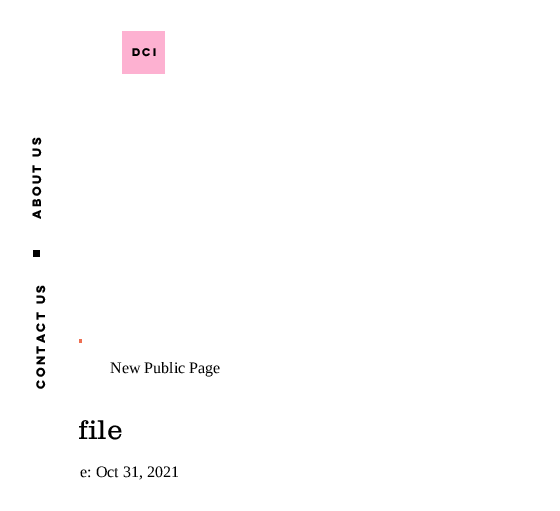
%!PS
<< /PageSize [560 511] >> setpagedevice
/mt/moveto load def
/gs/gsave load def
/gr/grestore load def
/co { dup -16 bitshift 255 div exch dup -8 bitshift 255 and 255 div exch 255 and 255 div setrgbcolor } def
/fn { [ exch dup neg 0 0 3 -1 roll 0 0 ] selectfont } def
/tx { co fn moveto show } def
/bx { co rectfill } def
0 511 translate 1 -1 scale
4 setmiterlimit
0 0 560 511 16#FFFFFF bx
122 31 43 43 16#FDB1D1 bx
33 250 7 7 16#000000 bx
79 339 3 4 16#EE6F52 bx
(DCI) 132 56 /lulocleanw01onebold-Bold 10 16#000000 tx
/lulocleanw01onebold-Bold 11 fn
gs 41 219 translate -90 rotate 0 0 mt (About us) show gr
gs 45 389 translate -90 rotate 0 0 mt (Contact us) show gr
(New Public Page) 110 373 /LiberationSerif-Regular 16 16#000000 tx
(file) 78 439 /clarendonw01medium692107-Light 28 16#000000 tx
78 425 1 14 16#FFFFFF bx
(e: Oct 31, 2021) 80 477 /LiberationSerif-Regular 16 16#000000 tx
showpage
